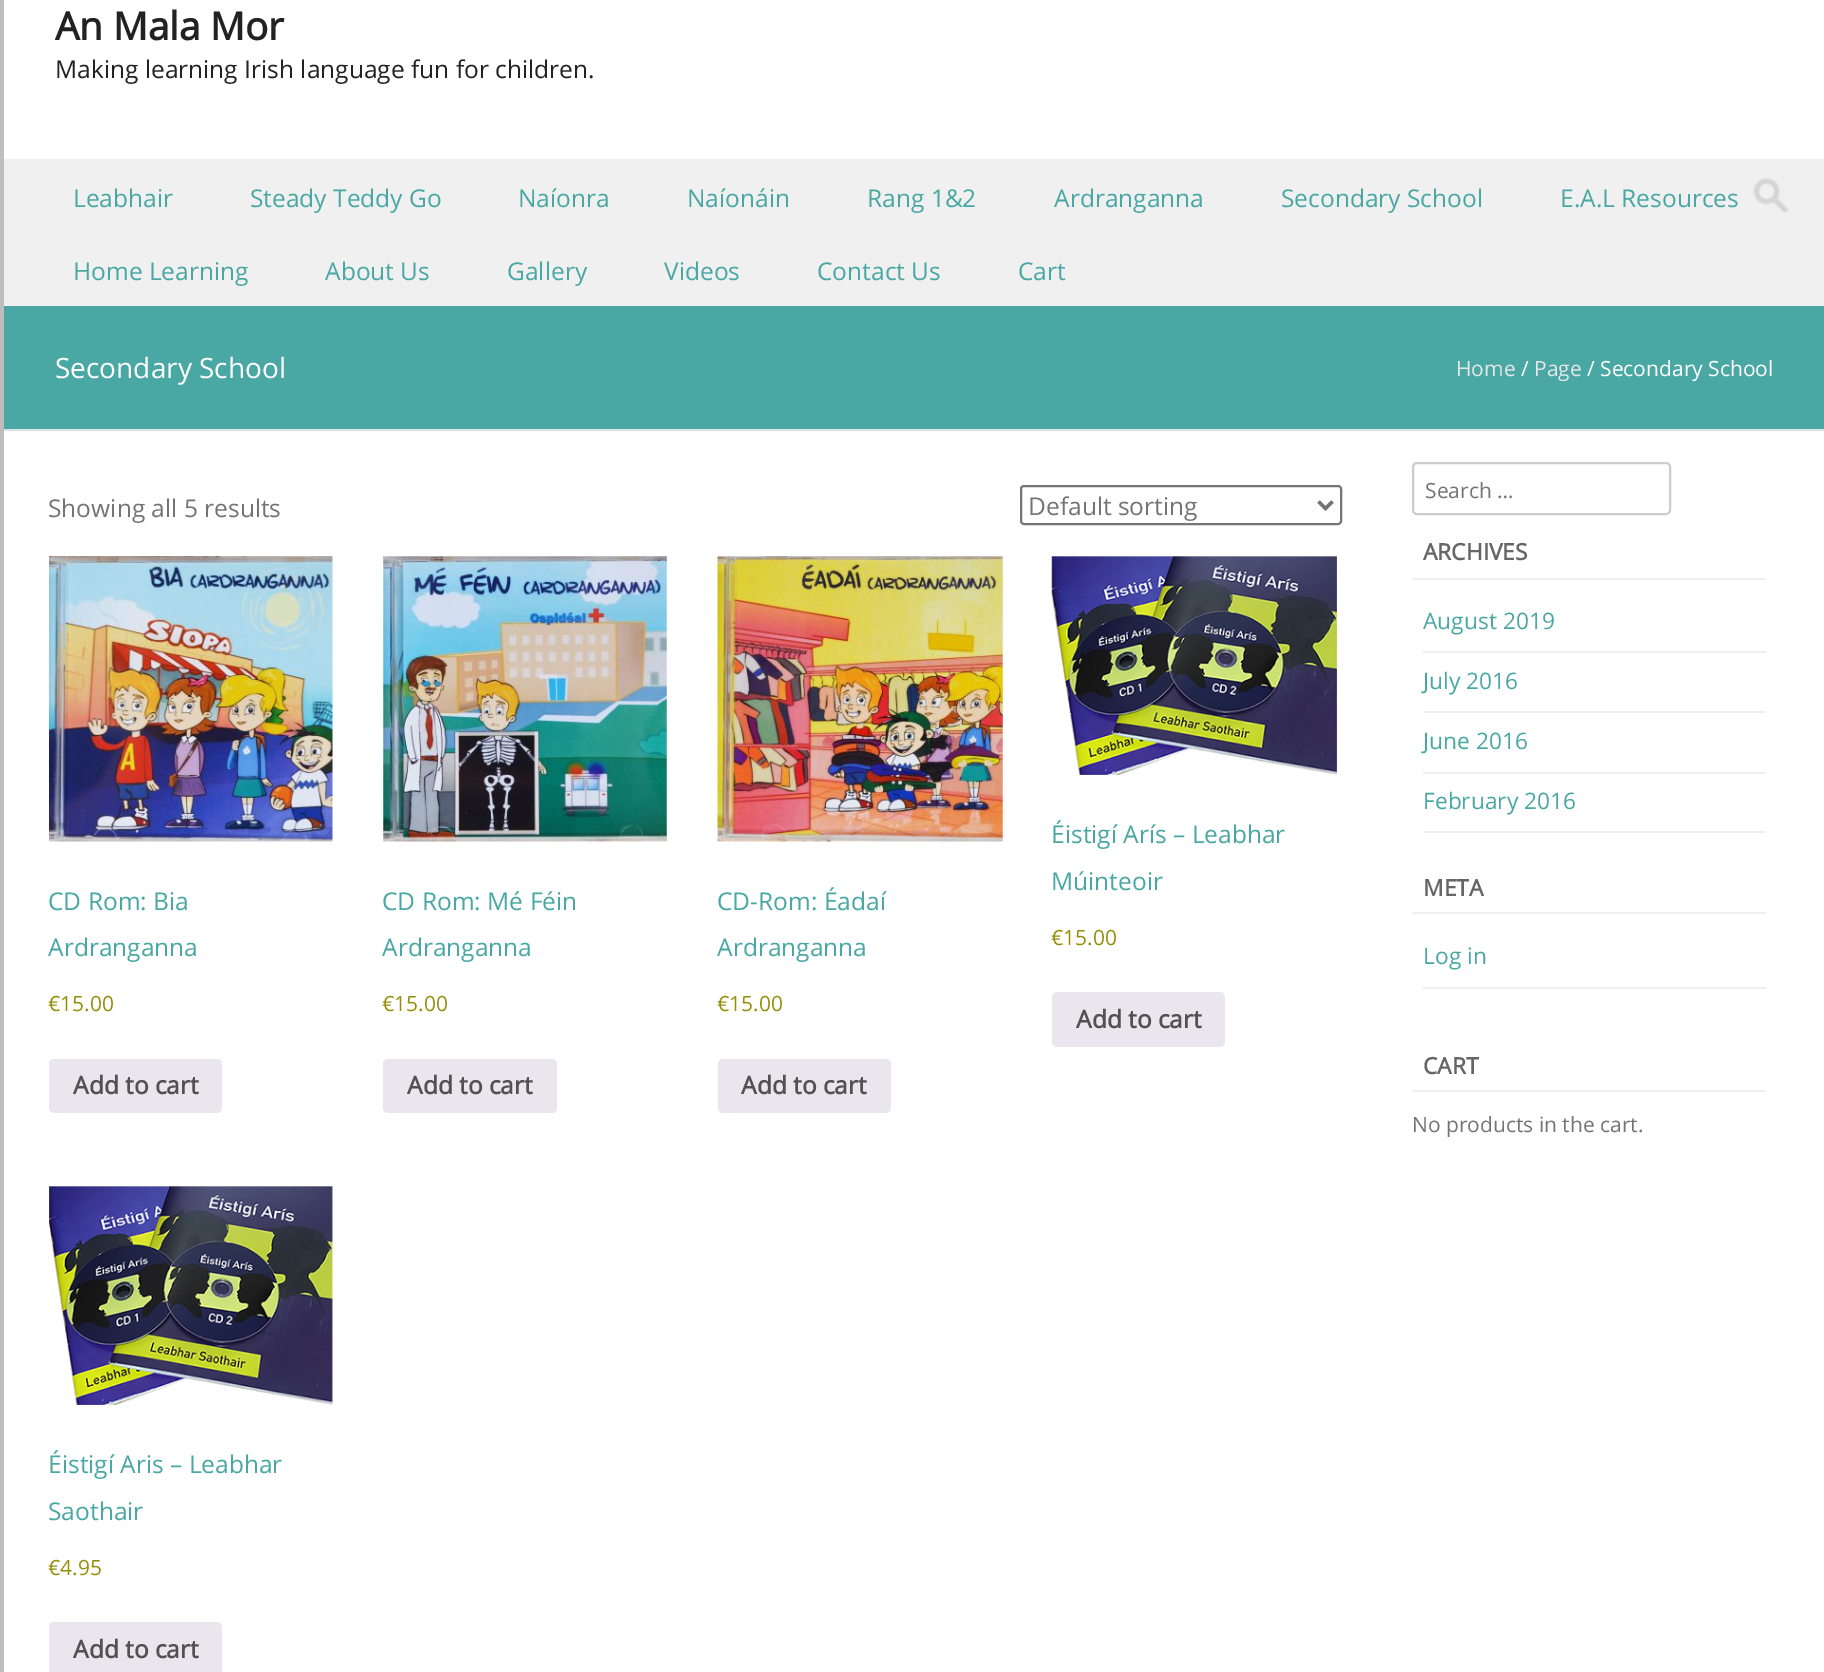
%!PS
<< /PageSize [1824 1672] /PageUsesTransparency true >> setpagedevice
/mt/moveto load def
/li/lineto load def
/fl/fill load def
/st/stroke load def
/lw/setlinewidth load def
/co { dup -16 bitshift 255 div exch dup -8 bitshift 255 and 255 div exch 255 and 255 div setrgbcolor } def
/fn { [ exch dup neg 0 0 3 -1 roll 0 0 ] selectfont } def
/tx { co fn moveto show } def
/bx { co rectfill } def
/al { dup .setfillconstantalpha .setstrokeconstantalpha } def
/rr { 5 dict begin { /r /h /w /y /x } { exch def } forall
  x r add y moveto x w add y 2 copy h add r arct x w add y h add x 1 index r arct
  x y h add x y r arct x y 2 copy exch w add exch r arct closepath end } def
/sh { 12 dict begin { /a /b /q /h /w /y /x } { exch def } forall gsave /was 0 def
  9 -2 -9 { dup b mul 4 div /e exch def 1 sub .425 mul 2.718 exch exp 1 add a .99 .min exch div /now exch def
    1 1 now sub 1 was sub div sub al /was now def
    w h .min e 2 mul add 0 gt { x e sub y e sub w e 2 mul add h e 2 mul add
      q e add b .6 mul add w h .min 2 div e add .min 0 .max rr fill } if } for grestore end } def
/im { 5 dict begin { /h /w /y /x /name } { exch def } forall
  gsave x y translate w h scale
  w h 8 [w 0 0 h 0 0] name (r) file false 3 colorimage grestore end } def
0 .pushpdf14devicefilter
0 1672 translate 1 -1 scale
4 setmiterlimit
0 0 1824 1672 16#EEEEEE bx
16#000000 co
4 -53 1820 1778 0 17.5 .4 sh
4 0 1820 1672 16#FFFFFF bx
4 159 1820 147 16#F0F0F0 bx
(media/1.raw) 1753 178 36 35 im
4 306 1820 123 16#49A7A4 bx
4 429 1820 2 16#E1E1E1 bx
16#767676 co
2 lw
1021 486 320 38 3 rr st
16#747474 co
3.5 lw
1318.5 501.5 mt 1325.5 508.5 li 1332.5 501.5 li st
(media/2.raw) 49 556 284 286 im
16#E9E6ED co
49 1059 173 54 5 rr fl
(media/3.raw) 383 556 284 286 im
383 1059 174 54 5 rr fl
(media/4.raw) 717 556 286 286 im
718 1059 173 54 5 rr fl
(media/5.raw) 1051 556 286 219 im
1052 992 173 55 5 rr fl
(media/6.raw) 49 1186 284 219 im
49 1622 173 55 5 rr fl
16#CCCCCC co
2 lw
1413 463 257 51 4 rr st
1412 578 354 2 16#EFEFEF bx
1423 651 343 2 16#EFEFEF bx
1423 711 343 2 16#EFEFEF bx
1423 772 343 2 16#EFEFEF bx
1423 831 343 2 16#EFEFEF bx
1412 912 354 2 16#EFEFEF bx
1423 987 343 2 16#EFEFEF bx
1412 1090 354 2 16#EFEFEF bx
(An Mala Mor) 55 40 /OpenSans-Bold 38.5 16#222222 tx
(Making learning Irish language fun for children.) 55 78 /OpenSans-Regular 24.5 16#222222 tx
(Leabhair) 73 207 /OpenSans-Regular 24.5 16#49A7A4 tx
(Steady Teddy Go) 250 207 /OpenSans-Regular 24.5 16#49A7A4 tx
(Naíonra) 518 207 /OpenSans-Regular 24.5 16#49A7A4 tx
(Naíonáin) 687 207 /OpenSans-Regular 24.5 16#49A7A4 tx
(Rang 1&2) 867 207 /OpenSans-Regular 24.5 16#49A7A4 tx
(Ardranganna) 1054 207 /OpenSans-Regular 24.5 16#49A7A4 tx
(Secondary School) 1281 207 /OpenSans-Regular 24.5 16#49A7A4 tx
(E.A.L Resources) 1560 207 /OpenSans-Regular 24.5 16#49A7A4 tx
(Home Learning) 73 280 /OpenSans-Regular 24.5 16#49A7A4 tx
(About Us) 325 280 /OpenSans-Regular 24.5 16#49A7A4 tx
(Gallery) 507 280 /OpenSans-Regular 24.5 16#49A7A4 tx
(Videos) 664 280 /OpenSans-Regular 24.5 16#49A7A4 tx
(Contact Us) 817 280 /OpenSans-Regular 24.5 16#49A7A4 tx
(Cart) 1018 280 /OpenSans-Regular 24.5 16#49A7A4 tx
(Secondary School) 55 378 /OpenSans-Regular 28 16#FFFFFF tx
(Home) 1456 376 /OpenSans-Regular 21 16#E7E7E7 tx
(/) 1521 376 /OpenSans-Regular 21 16#FFFFFF tx
(Page) 1534 376 /OpenSans-Regular 21 16#E7E7E7 tx
(/ Secondary School) 1587 376 /OpenSans-Regular 21 16#FFFFFF tx
(Showing all 5 results) 48 517 /OpenSans-Regular 24.5 16#747474 tx
(Default sorting) 1028 515 /OpenSans-Regular 24.5 16#747474 tx
(CD Rom: Bia) 48 910 /OpenSans-Regular 24.5 16#49A7A4 tx
(Ardranganna) 48 956 /OpenSans-Regular 24.5 16#49A7A4 tx
(€15.00) 48 1011 /OpenSans-Regular 21 16#958E09 tx
(Add to cart) 73 1094 /OpenSans-Bold 24.5 16#515151 tx
(CD Rom: Mé Féin) 382 910 /OpenSans-Regular 24.5 16#49A7A4 tx
(Ardranganna) 382 956 /OpenSans-Regular 24.5 16#49A7A4 tx
(€15.00) 382 1011 /OpenSans-Regular 21 16#958E09 tx
(Add to cart) 407 1094 /OpenSans-Bold 24.5 16#515151 tx
(CD-Rom: Éadaí) 717 910 /OpenSans-Regular 24.5 16#49A7A4 tx
(Ardranganna) 717 956 /OpenSans-Regular 24.5 16#49A7A4 tx
(€15.00) 717 1011 /OpenSans-Regular 21 16#958E09 tx
(Add to cart) 741 1094 /OpenSans-Bold 24.5 16#515151 tx
(Éistigí Arís – Leabhar) 1051 843 /OpenSans-Regular 24.5 16#49A7A4 tx
(Múinteoir) 1051 890 /OpenSans-Regular 24.5 16#49A7A4 tx
(€15.00) 1051 945 /OpenSans-Regular 21 16#958E09 tx
(Add to cart) 1076 1028 /OpenSans-Bold 24.5 16#515151 tx
(Éistigí Aris – Leabhar) 48 1473 /OpenSans-Regular 24.5 16#49A7A4 tx
(Saothair) 48 1520 /OpenSans-Regular 24.5 16#49A7A4 tx
(€4.95) 48 1575 /OpenSans-Regular 21 16#958E09 tx
(Add to cart) 73 1658 /OpenSans-Bold 24.5 16#515151 tx
(Search …) 1425 498 /OpenSans-Regular 21 16#747474 tx
(ARCHIVES) 1423 560 /OpenSans-Bold 22.75 16#666666 tx
(August 2019) 1423 629 /OpenSans-Regular 22.75 16#49A7A4 tx
(July 2016) 1423 689 /OpenSans-Regular 22.75 16#49A7A4 tx
(June 2016) 1423 749 /OpenSans-Regular 22.75 16#49A7A4 tx
(February 2016) 1423 809 /OpenSans-Regular 22.75 16#49A7A4 tx
(META) 1423 896 /OpenSans-Bold 22.75 16#666666 tx
(Log in) 1423 964 /OpenSans-Regular 22.75 16#49A7A4 tx
(CART) 1423 1074 /OpenSans-Bold 22.75 16#666666 tx
(No products in the cart.) 1412 1132 /OpenSans-Regular 21 16#747474 tx
.poppdf14devicefilter showpage
